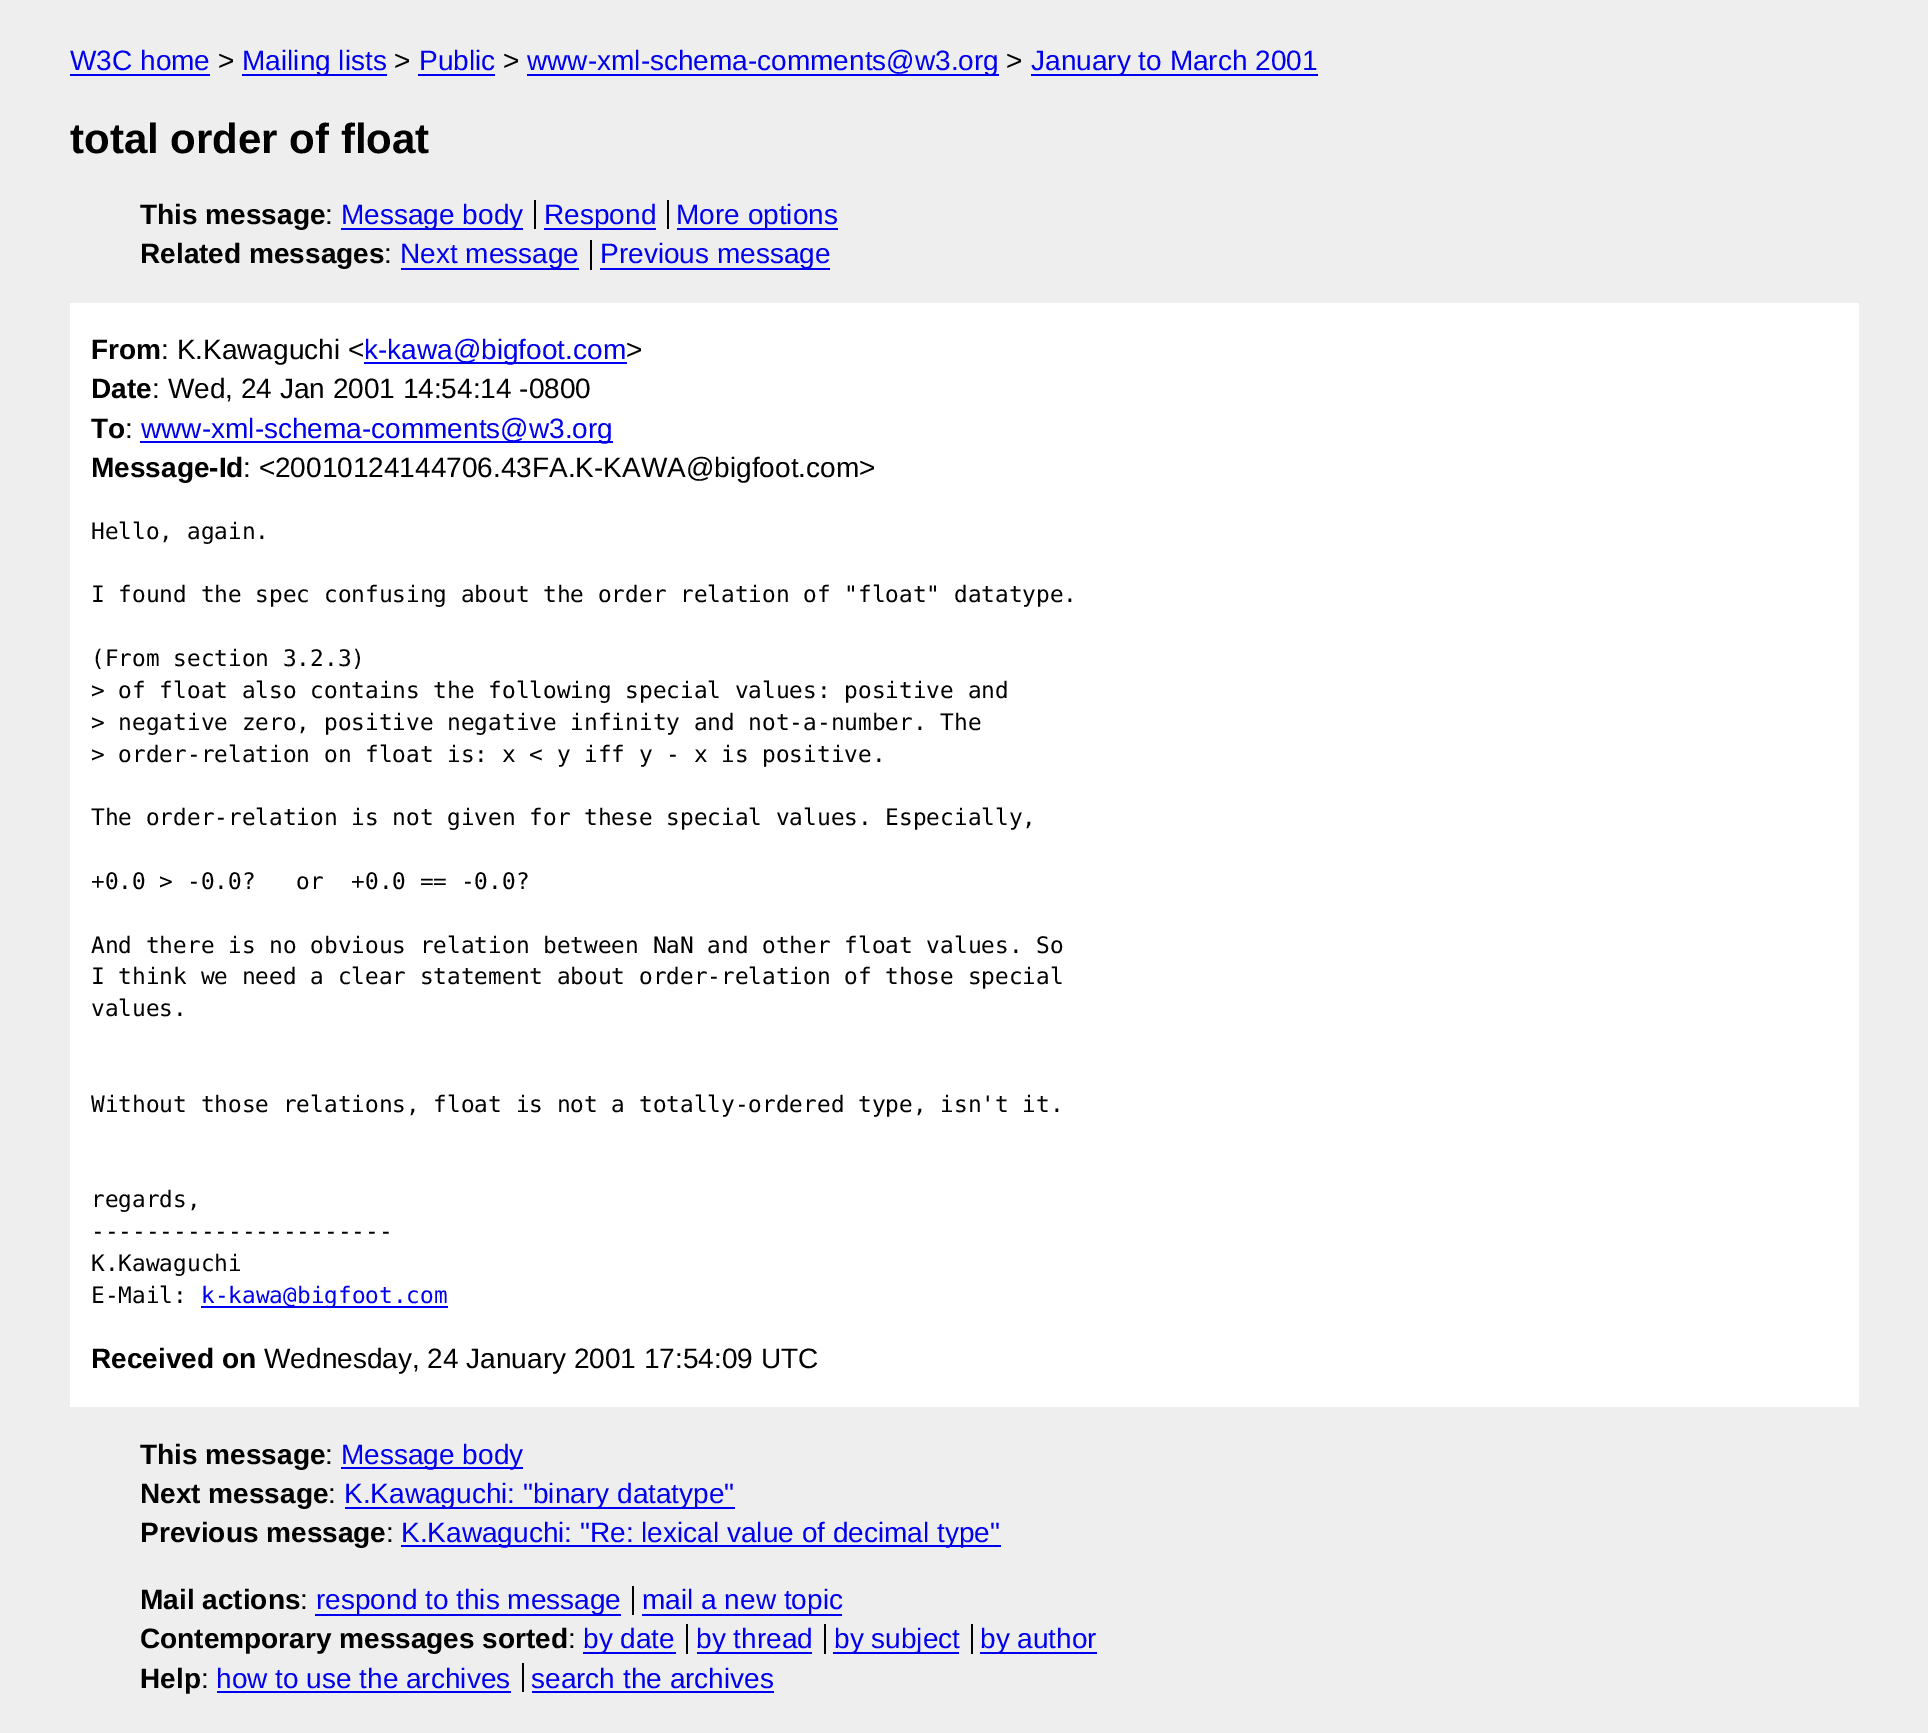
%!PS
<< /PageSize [1928 1733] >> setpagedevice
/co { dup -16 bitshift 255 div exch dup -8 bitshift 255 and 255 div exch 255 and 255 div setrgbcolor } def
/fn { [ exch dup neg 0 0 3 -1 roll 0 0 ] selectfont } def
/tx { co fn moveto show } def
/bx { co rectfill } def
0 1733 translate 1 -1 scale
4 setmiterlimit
0 0 1928 1733 16#EEEEEE bx
70 74 140 2 16#0000EE bx
242 74 145 2 16#0000EE bx
418 74 77 2 16#0000EE bx
527 74 472 2 16#0000EE bx
1031 74 287 2 16#0000EE bx
341 228 182 2 16#0000EE bx
534 200 2 29 16#000000 bx
544 228 112 2 16#0000EE bx
667 200 2 29 16#000000 bx
677 228 161 2 16#0000EE bx
401 268 178 2 16#0000EE bx
590 240 2 30 16#000000 bx
600 268 230 2 16#0000EE bx
70 303 1789 1104 16#FFFFFF bx
364 362 263 2 16#0000EE bx
140 441 473 2 16#0000EE bx
201 1306 247 2 16#0000EE bx
341 1467 182 2 16#0000EE bx
345 1507 390 2 16#0000EE bx
401 1545 600 2 16#0000EE bx
315 1614 306 2 16#0000EE bx
632 1586 2 29 16#000000 bx
642 1614 200 2 16#0000EE bx
583 1652 93 2 16#0000EE bx
686 1624 2 30 16#000000 bx
697 1652 115 2 16#0000EE bx
824 1624 2 30 16#000000 bx
833 1652 126 2 16#0000EE bx
971 1624 2 30 16#000000 bx
980 1652 117 2 16#0000EE bx
217 1691 294 2 16#0000EE bx
522 1663 2 29 16#000000 bx
532 1691 242 2 16#0000EE bx
(W3C home) 70 70 /LiberationSans-Regular 28 16#0000EE tx
(>) 218 70 /LiberationSans-Regular 28 16#000000 tx
(Mailing lists) 242 70 /LiberationSans-Regular 28 16#0000EE tx
(>) 394 70 /LiberationSans-Regular 28 16#000000 tx
(Public) 419 70 /LiberationSans-Regular 28 16#0000EE tx
(>) 503 70 /LiberationSans-Regular 28 16#000000 tx
(www-xml-schema-comments@w3.org) 527 70 /LiberationSans-Regular 28 16#0000EE tx
(>) 1006 70 /LiberationSans-Regular 28 16#000000 tx
(January to March 2001) 1031 70 /LiberationSans-Regular 28 16#0000EE tx
(total order of float) 70 153 /LiberationSans-Bold 42 16#000000 tx
(This message) 140 224 /LiberationSans-Bold 28 16#000000 tx
(:) 325 224 /LiberationSans-Regular 28 16#000000 tx
(Message body) 341 224 /LiberationSans-Regular 28 16#0000EE tx
(Respond) 544 224 /LiberationSans-Regular 28 16#0000EE tx
(More options) 676 224 /LiberationSans-Regular 28 16#0000EE tx
(Related messages) 140 263 /LiberationSans-Bold 28 16#000000 tx
(:) 384 263 /LiberationSans-Regular 28 16#000000 tx
(Next message) 400 263 /LiberationSans-Regular 28 16#0000EE tx
(Previous message) 600 263 /LiberationSans-Regular 28 16#0000EE tx
(From) 91 359 /LiberationSans-Bold 28 16#000000 tx
(: K.Kawaguchi <) 161 359 /LiberationSans-Regular 28 16#000000 tx
(k-kawa@bigfoot.com) 364 359 /LiberationSans-Regular 28 16#0000EE tx
(>) 626 359 /LiberationSans-Regular 28 16#000000 tx
(Date) 91 398 /LiberationSans-Bold 28 16#000000 tx
(: Wed, 24 Jan 2001 14:54:14 -0800) 152 398 /LiberationSans-Regular 28 16#000000 tx
(To) 91 438 /LiberationSans-Bold 28 16#000000 tx
(:) 125 438 /LiberationSans-Regular 28 16#000000 tx
(www-xml-schema-comments@w3.org) 141 438 /LiberationSans-Regular 28 16#0000EE tx
(Message-Id) 91 477 /LiberationSans-Bold 28 16#000000 tx
(: <20010124144706.43FA.K-KAWA@bigfoot.com>) 243 477 /LiberationSans-Regular 28 16#000000 tx
(Hello, again.) 91 539 /DejaVuSansMono-Regular 22.75 16#000000 tx
(I found the spec confusing about the order relation of "float" datatype.) 91 602 /DejaVuSansMono-Regular 22.75 16#000000 tx
(\(From section 3.2.3\)) 91 666 /DejaVuSansMono-Regular 22.75 16#000000 tx
(> of float also contains the following special values: positive and) 91 698 /DejaVuSansMono-Regular 22.75 16#000000 tx
(> negative zero, positive negative infinity and not-a-number. The) 91 730 /DejaVuSansMono-Regular 22.75 16#000000 tx
(> order-relation on float is: x < y iff y - x is positive.) 91 762 /DejaVuSansMono-Regular 22.75 16#000000 tx
(The order-relation is not given for these special values. Especially,) 91 825 /DejaVuSansMono-Regular 22.75 16#000000 tx
(+0.0 > -0.0?   or  +0.0 == -0.0?) 91 889 /DejaVuSansMono-Regular 22.75 16#000000 tx
(And there is no obvious relation between NaN and other float values. So) 91 953 /DejaVuSansMono-Regular 22.75 16#000000 tx
(I think we need a clear statement about order-relation of those special) 91 984 /DejaVuSansMono-Regular 22.75 16#000000 tx
(values.) 91 1016 /DejaVuSansMono-Regular 22.75 16#000000 tx
(Without those relations, float is not a totally-ordered type, isn't it.) 91 1112 /DejaVuSansMono-Regular 22.75 16#000000 tx
(regards,) 91 1207 /DejaVuSansMono-Regular 22.75 16#000000 tx
(----------------------) 91 1239 /DejaVuSansMono-Regular 22.75 16#000000 tx
(K.Kawaguchi) 91 1271 /DejaVuSansMono-Regular 22.75 16#000000 tx
(E-Mail:) 91 1303 /DejaVuSansMono-Regular 22.75 16#000000 tx
(k-kawa@bigfoot.com) 201 1303 /DejaVuSansMono-Regular 22.75 16#0000EE tx
(Received on) 91 1368 /LiberationSans-Bold 28 16#000000 tx
(Wednesday, 24 January 2001 17:54:09 UTC) 264 1368 /LiberationSans-Regular 28 16#000000 tx
(This message) 140 1464 /LiberationSans-Bold 28 16#000000 tx
(:) 325 1464 /LiberationSans-Regular 28 16#000000 tx
(Message body) 341 1464 /LiberationSans-Regular 28 16#0000EE tx
(Next message) 140 1503 /LiberationSans-Bold 28 16#000000 tx
(:) 328 1503 /LiberationSans-Regular 28 16#000000 tx
(K.Kawaguchi: "binary datatype") 344 1503 /LiberationSans-Regular 28 16#0000EE tx
(Previous message) 140 1542 /LiberationSans-Bold 28 16#000000 tx
(:) 386 1542 /LiberationSans-Regular 28 16#000000 tx
(K.Kawaguchi: "Re: lexical value of decimal type") 401 1542 /LiberationSans-Regular 28 16#0000EE tx
(Mail actions) 140 1609 /LiberationSans-Bold 28 16#000000 tx
(:) 300 1609 /LiberationSans-Regular 28 16#000000 tx
(respond to this message) 316 1609 /LiberationSans-Regular 28 16#0000EE tx
(mail a new topic) 642 1609 /LiberationSans-Regular 28 16#0000EE tx
(Contemporary messages sorted) 140 1648 /LiberationSans-Bold 28 16#000000 tx
(:) 568 1648 /LiberationSans-Regular 28 16#000000 tx
(by date) 583 1648 /LiberationSans-Regular 28 16#0000EE tx
(by thread) 696 1648 /LiberationSans-Regular 28 16#0000EE tx
(by subject) 834 1648 /LiberationSans-Regular 28 16#0000EE tx
(by author) 980 1648 /LiberationSans-Regular 28 16#0000EE tx
(Help) 140 1688 /LiberationSans-Bold 28 16#000000 tx
(:) 201 1688 /LiberationSans-Regular 28 16#000000 tx
(how to use the archives) 216 1688 /LiberationSans-Regular 28 16#0000EE tx
(search the archives) 531 1688 /LiberationSans-Regular 28 16#0000EE tx
showpage
